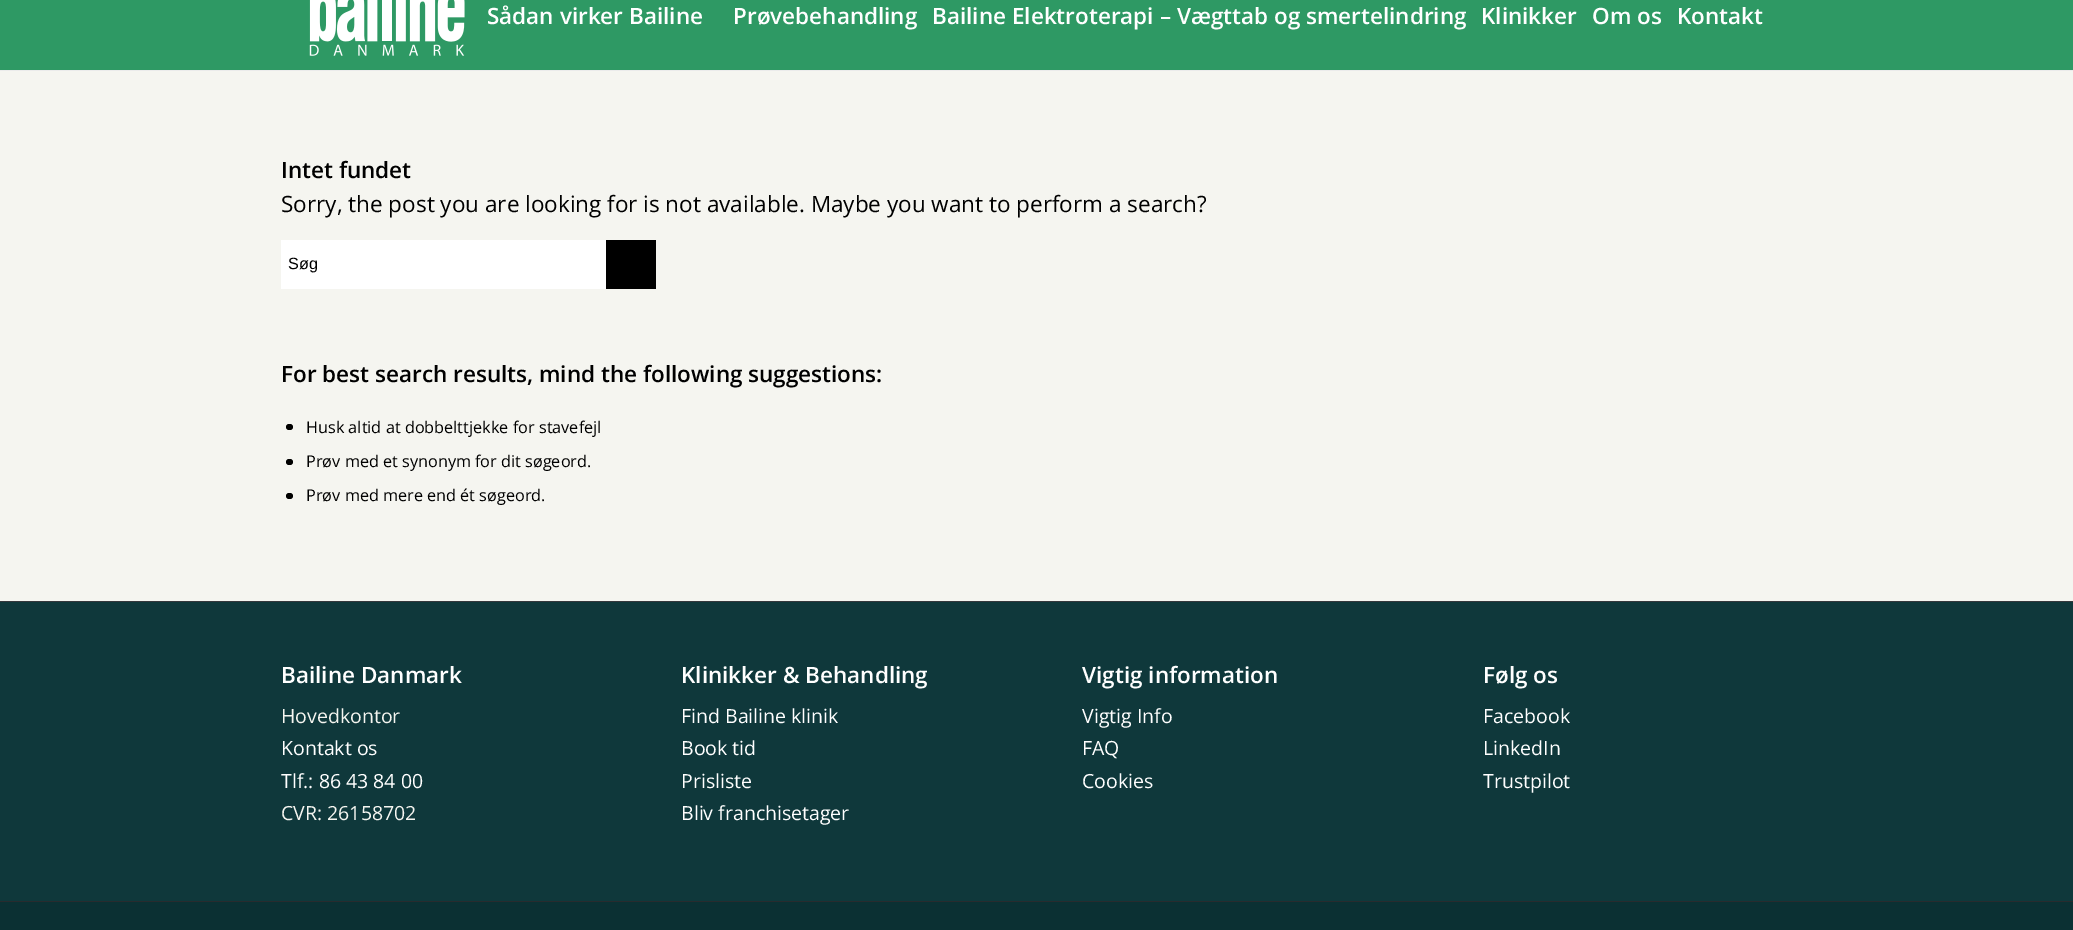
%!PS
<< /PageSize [2073 930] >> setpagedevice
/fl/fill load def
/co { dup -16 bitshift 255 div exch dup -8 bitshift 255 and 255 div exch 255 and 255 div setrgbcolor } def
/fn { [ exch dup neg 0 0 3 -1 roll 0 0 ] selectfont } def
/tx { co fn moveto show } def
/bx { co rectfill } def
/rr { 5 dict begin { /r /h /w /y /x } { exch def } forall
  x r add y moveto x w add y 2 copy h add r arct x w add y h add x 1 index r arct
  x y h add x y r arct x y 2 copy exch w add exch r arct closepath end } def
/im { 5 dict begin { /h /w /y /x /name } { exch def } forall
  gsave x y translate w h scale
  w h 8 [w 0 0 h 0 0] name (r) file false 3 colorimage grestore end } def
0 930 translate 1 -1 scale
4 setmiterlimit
0 0 2073 930 16#F5F5F0 bx
0 0 2073 70 16#2E9964 bx
0 70 2073 1 16#EBEBEB bx
(media/1.raw) 309 0 156 56 im
281 240 325 49 16#FFFFFF bx
606 240 50 49 16#000000 bx
286 424 7 6 3 rr fl
286 459 7 6 3 rr fl
286 493 7 6 3 rr fl
0 602 2073 299 16#0F383B bx
0 601 2073 1 16#35383C bx
0 902 2073 28 16#0B3033 bx
0 901 2073 1 16#282B2E bx
(Sådan virker Bailine) 487 24 /OpenSans-SemiBold 22.5 16#FFFFFF tx
(Prøvebehandling) 733 24 /OpenSans-SemiBold 22.5 16#FFFFFF tx
(Bailine Elektroterapi – Vægttab og smertelindring) 932 24 /OpenSans-SemiBold 22.5 16#FFFFFF tx
(Klinikker) 1481 24 /OpenSans-SemiBold 22.5 16#FFFFFF tx
(Om os) 1592 24 /OpenSans-SemiBold 22.5 16#FFFFFF tx
(Kontakt) 1677 24 /OpenSans-SemiBold 22.5 16#FFFFFF tx
(Intet fundet) 281 178 /OpenSans-SemiBold 22.5 16#000000 tx
(Sorry, the post you are looking for is not available. Maybe you want to perform a search?) 281 212 /OpenSans-Regular 22.5 16#000000 tx
(Søg) 288 269 /LiberationSans-Regular 16.25 16#000000 tx
(For best search results, mind the following suggestions:) 281 382 /OpenSans-SemiBold 22.5 16#000000 tx
(Husk altid at dobbelttjekke for stavefejl) 306 433 /OpenSans-Regular 16.25 16#000000 tx
(Prøv med et synonym for dit søgeord.) 306 467 /OpenSans-Regular 16.25 16#000000 tx
(Prøv med mere end ét søgeord.) 306 501 /OpenSans-Regular 16.25 16#000000 tx
(Bailine Danmark) 281 683 /OpenSans-SemiBold 22.5 16#FFFFFF tx
(Hovedkontor) 281 723 /OpenSans-Regular 19.5 16#F5F5F0 tx
(Kontakt os) 281 755 /OpenSans-Regular 19.5 16#FFFFFF tx
(Tlf.: 86 43 84 00) 281 788 /OpenSans-Regular 19.5 16#FFFFFF tx
(CVR: 26158702) 281 820 /OpenSans-Regular 19.5 16#F5F5F0 tx
(Klinikker & Behandling) 681 683 /OpenSans-SemiBold 22.5 16#FFFFFF tx
(Find Bailine klinik) 681 723 /OpenSans-Regular 19.5 16#FFFFFF tx
(Book tid) 681 755 /OpenSans-Regular 19.5 16#FFFFFF tx
(Prisliste) 681 788 /OpenSans-Regular 19.5 16#FFFFFF tx
(Bliv franchisetager) 681 820 /OpenSans-Regular 19.5 16#FFFFFF tx
(Vigtig information) 1082 683 /OpenSans-SemiBold 22.5 16#FFFFFF tx
(Vigtig Info) 1082 723 /OpenSans-Regular 19.5 16#FFFFFF tx
(FAQ) 1082 755 /OpenSans-Regular 19.5 16#FFFFFF tx
(Cookies) 1082 788 /OpenSans-Regular 19.5 16#FFFFFF tx
(Følg os) 1483 683 /OpenSans-SemiBold 22.5 16#FFFFFF tx
(Facebook) 1483 723 /OpenSans-Regular 19.5 16#FFFFFF tx
(LinkedIn) 1483 755 /OpenSans-Regular 19.5 16#FFFFFF tx
(Trustpilot) 1483 788 /OpenSans-Regular 19.5 16#FFFFFF tx
showpage
